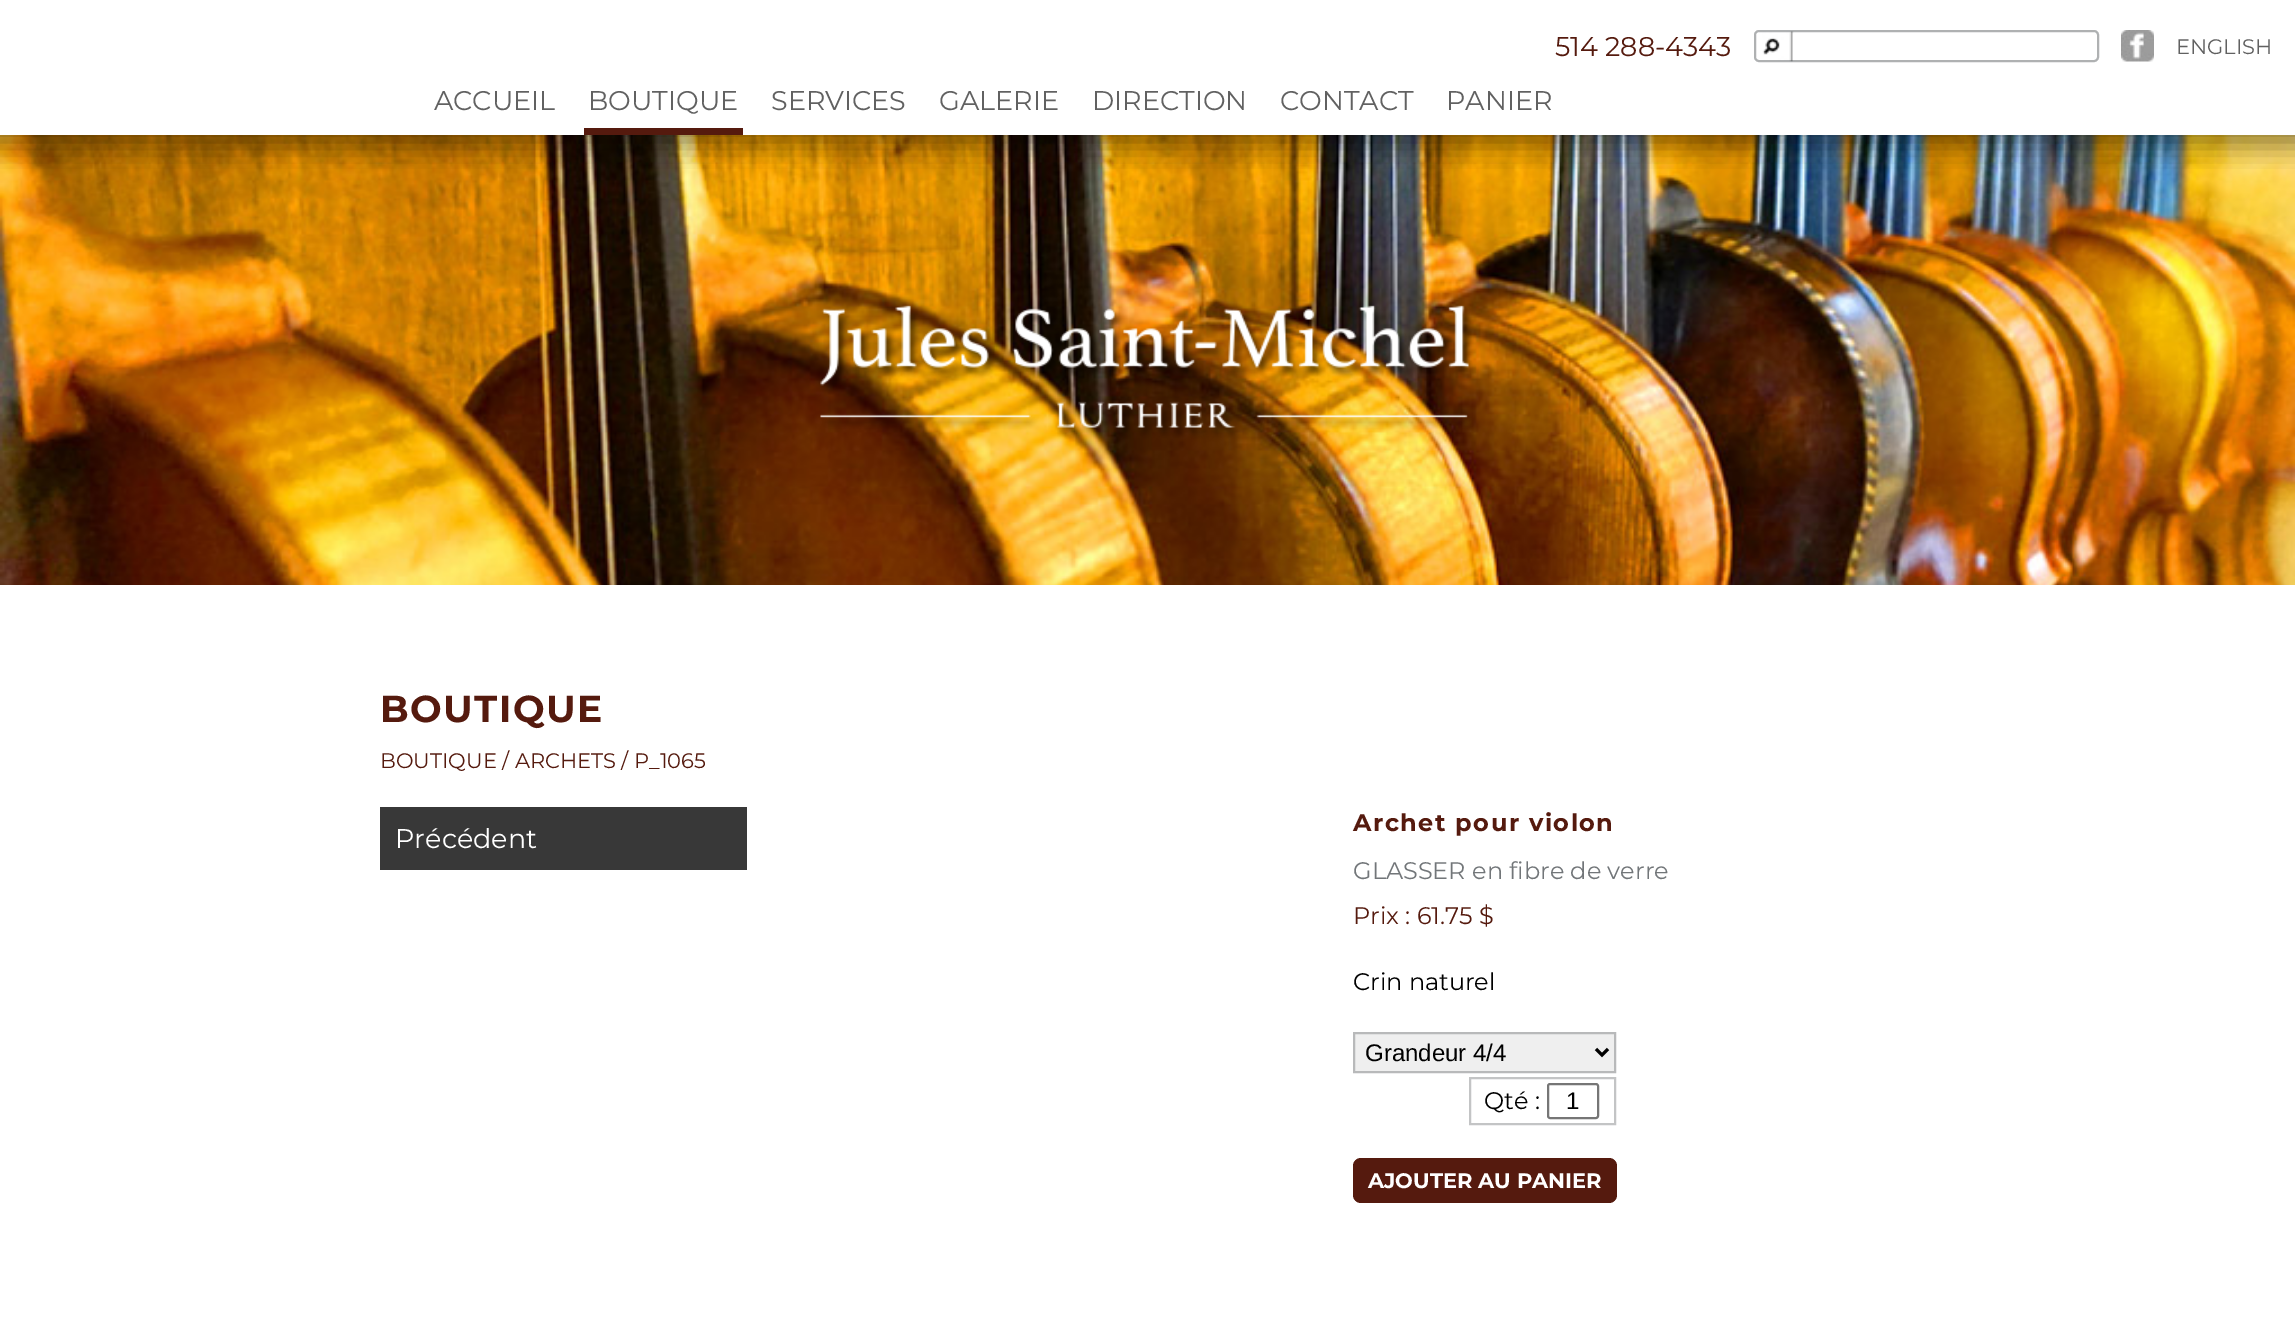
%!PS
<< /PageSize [2295 1331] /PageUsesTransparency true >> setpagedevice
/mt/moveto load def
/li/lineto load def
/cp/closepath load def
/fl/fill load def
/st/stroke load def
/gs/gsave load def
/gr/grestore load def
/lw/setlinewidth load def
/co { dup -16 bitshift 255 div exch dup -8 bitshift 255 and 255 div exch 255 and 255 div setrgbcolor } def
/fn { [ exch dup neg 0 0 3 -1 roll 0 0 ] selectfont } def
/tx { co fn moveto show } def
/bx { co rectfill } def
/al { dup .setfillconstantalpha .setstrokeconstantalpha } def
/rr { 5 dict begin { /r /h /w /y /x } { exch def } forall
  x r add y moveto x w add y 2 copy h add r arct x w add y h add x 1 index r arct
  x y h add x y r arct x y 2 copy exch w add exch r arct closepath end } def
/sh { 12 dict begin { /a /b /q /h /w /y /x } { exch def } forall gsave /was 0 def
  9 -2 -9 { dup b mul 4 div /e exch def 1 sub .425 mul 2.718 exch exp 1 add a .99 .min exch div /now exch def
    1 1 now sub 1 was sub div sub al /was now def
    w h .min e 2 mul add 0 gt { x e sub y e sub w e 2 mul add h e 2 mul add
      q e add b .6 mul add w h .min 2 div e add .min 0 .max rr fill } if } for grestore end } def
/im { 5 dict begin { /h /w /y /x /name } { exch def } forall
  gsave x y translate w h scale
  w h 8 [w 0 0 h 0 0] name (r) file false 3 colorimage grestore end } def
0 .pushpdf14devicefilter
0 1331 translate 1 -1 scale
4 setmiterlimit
0 0 2295 1331 16#FFFFFF bx
(media/3.raw) 0 135 2295 450 im
gs
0 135 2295 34 rectclip
16#000000 co
-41 12 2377 135 0 13.5 .4 sh
gr
(media/1.raw) 1762 31 32 31 im
0.4 al
16#363B3F co
2 lw
1755 31 343 30 4 rr st
1 al
(media/2.raw) 2121 30 33 32 im
584 128 159 7 16#551A0E bx
(media/4.raw) 820 305 656 134 im
380 807 367 63 16#383838 bx
16#EFEFEF co
1354 1033 mt 1615 1033 li 1615 1072 li 1354 1072 li cp gs fl gr
16#B8B9BA co
st
16#000000 co
3 lw
1596 1049 mt 1602 1055 li 1608 1049 li st
16#C3C4C5 co
2 lw
1470 1078 145 46 rectstroke
16#767676 co
1548 1084 50 34 2 rr st
16#551A0E co
1353 1158 264 45 8 rr fl
(514 288-4343) 1555 56 /Montserrat-Regular 27 16#551A0E tx
(ENGLISH) 2176 54 /Montserrat-Regular 21 16#616161 tx
(ACCUEIL) 434 110 /Montserrat-Regular 27 16#616161 tx
(BOUTIQUE) 588 110 /Montserrat-Regular 27 16#616161 tx
(SERVICES) 771 110 /Montserrat-Regular 27 16#616161 tx
(GALERIE) 939 110 /Montserrat-Regular 27 16#616161 tx
(DIRECTION) 1092 110 /Montserrat-Regular 27 16#616161 tx
(CONTACT) 1280 110 /Montserrat-Regular 27 16#616161 tx
(PANIER) 1446 110 /Montserrat-Regular 27 16#616161 tx
/Montserrat-Bold 37.5 fn
16#551A0E co
380 722 mt 1.5 0 (BOUTIQUE) ashow
(BOUTIQUE / ARCHETS / P_1065) 380 768 /Montserrat-Regular 21 16#551A0E tx
(Précédent) 395 848 /Montserrat-Regular 27 16#FFFFFF tx
/Montserrat-Bold 24 fn
16#551A0E co
1353 831 mt 1.5 0 (Archet pour violon) ashow
(GLASSER en fibre de verre) 1353 879 /Montserrat-Regular 24 16#727679 tx
(Prix : 61.75 $) 1353 924 /Montserrat-Regular 24 16#551A0E tx
(Crin naturel) 1353 990 /Montserrat-Regular 24 16#000000 tx
(Grandeur 4/4) 1365 1061 /LiberationSans-Regular 24 16#000000 tx
(Qté :) 1484 1109 /Montserrat-Regular 24 16#000000 tx
(1) 1566 1109 /LiberationSans-Regular 24 16#000000 tx
(AJOUTER AU PANIER) 1368 1188 /Montserrat-Bold 21 16#FFFFFF tx
.poppdf14devicefilter showpage
